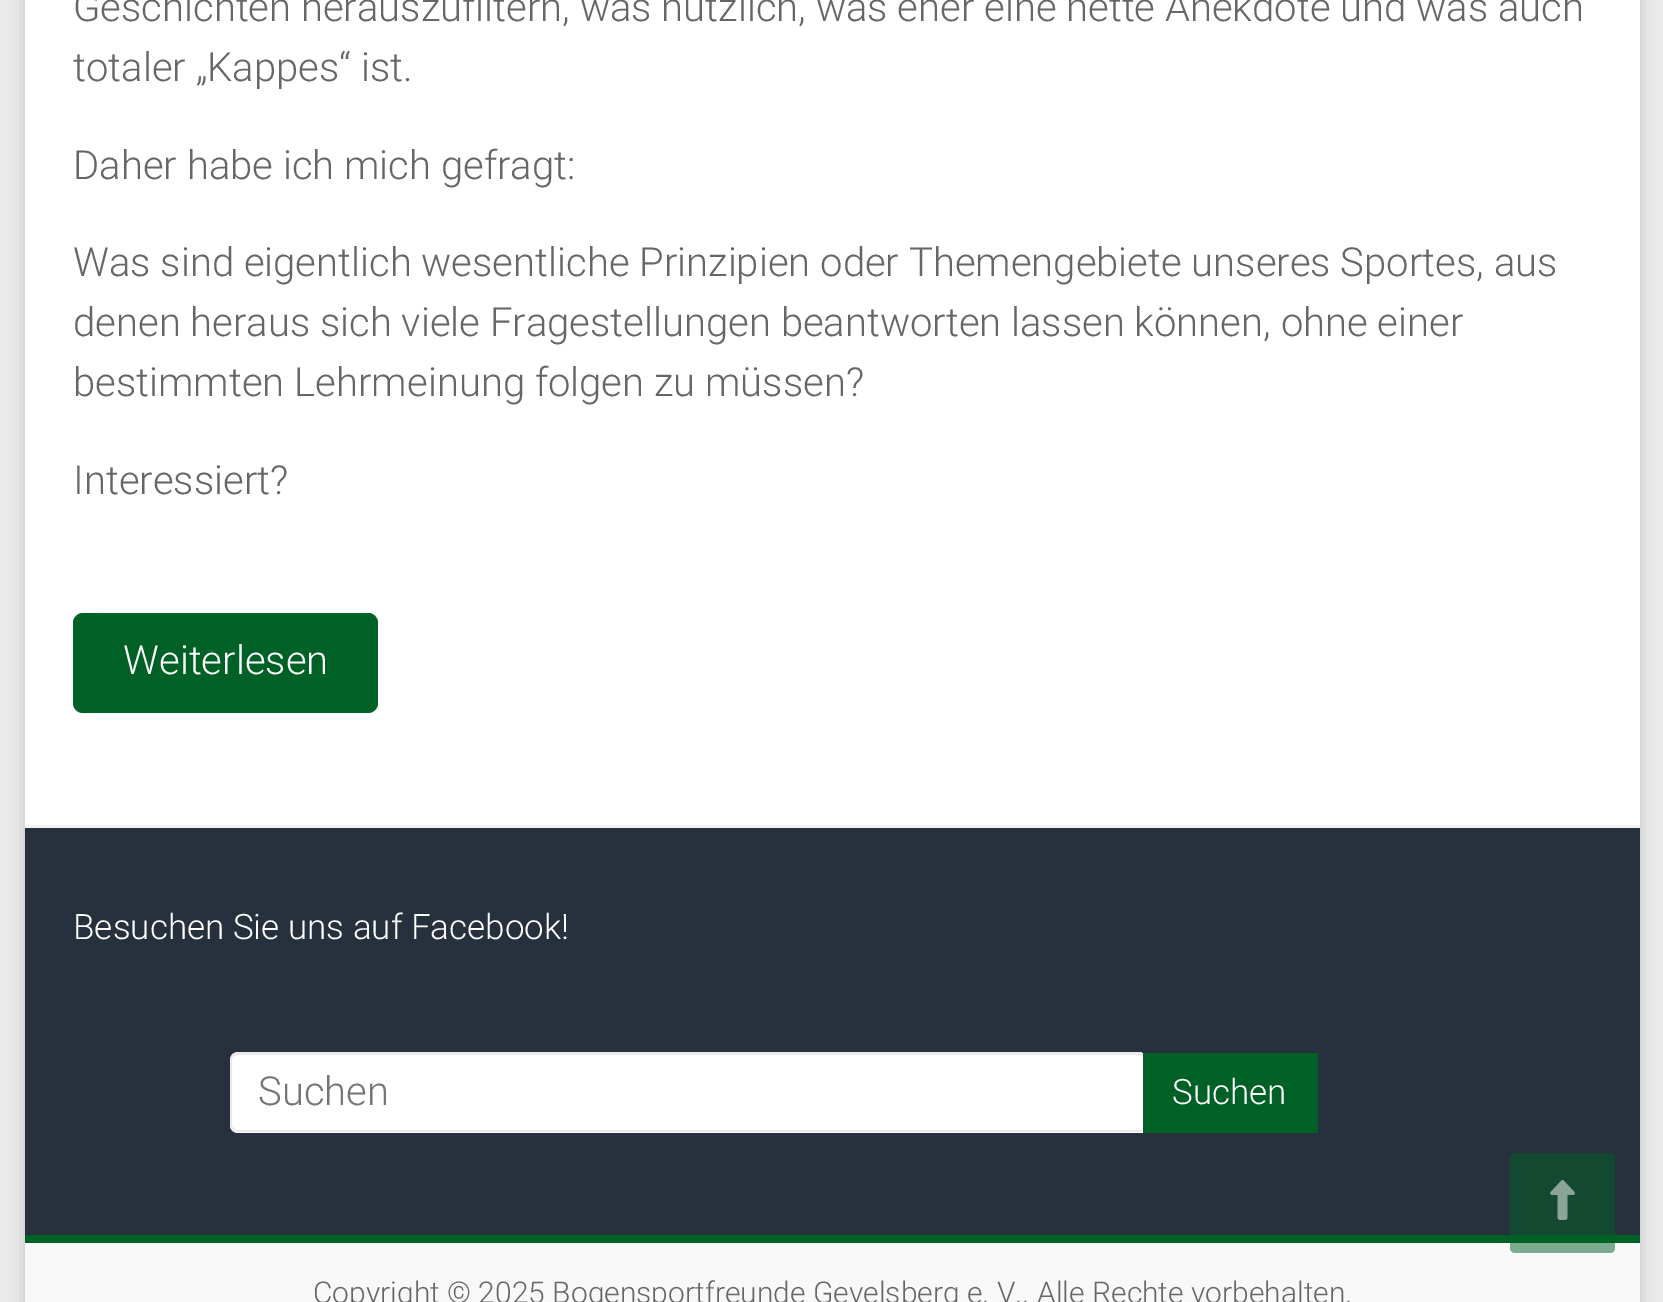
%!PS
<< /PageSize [1663 1302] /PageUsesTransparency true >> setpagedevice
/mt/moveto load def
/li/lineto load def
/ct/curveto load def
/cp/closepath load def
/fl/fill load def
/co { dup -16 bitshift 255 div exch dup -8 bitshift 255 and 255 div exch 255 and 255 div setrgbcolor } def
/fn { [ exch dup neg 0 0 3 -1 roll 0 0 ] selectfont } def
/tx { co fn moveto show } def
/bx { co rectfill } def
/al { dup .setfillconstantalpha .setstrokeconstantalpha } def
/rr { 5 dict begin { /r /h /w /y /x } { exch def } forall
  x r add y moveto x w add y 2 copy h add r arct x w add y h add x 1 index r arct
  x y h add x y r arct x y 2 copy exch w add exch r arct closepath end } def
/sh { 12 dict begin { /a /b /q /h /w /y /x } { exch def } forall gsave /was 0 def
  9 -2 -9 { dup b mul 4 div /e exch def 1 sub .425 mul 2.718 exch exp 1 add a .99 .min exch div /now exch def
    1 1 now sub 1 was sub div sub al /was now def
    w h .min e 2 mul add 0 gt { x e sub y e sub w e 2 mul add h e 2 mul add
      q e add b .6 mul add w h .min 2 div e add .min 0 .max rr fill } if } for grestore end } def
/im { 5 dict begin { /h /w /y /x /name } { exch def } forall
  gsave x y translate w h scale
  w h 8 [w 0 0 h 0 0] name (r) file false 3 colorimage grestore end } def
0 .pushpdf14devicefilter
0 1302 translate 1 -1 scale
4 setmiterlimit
0 0 1663 1302 16#EAEAEA bx
16#646464 co
25 -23 1615 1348 0 7.5 .3 sh
25 0 1615 825 16#FFFFFF bx
16#006126 co
73 613 305 100 10 rr fl
25 828 1615 407 16#27313D bx
25 825 1615 3 16#F2F2F2 bx
16#FFFFFF co
238 1053 mt 1143 1053 li 1143 1133 li 238 1133 li 233.5 1133 230 1129.5 230 1125 ct 230 1061 li 230 1056.5 233.5 1053 238 1053 ct cp fl
16#EAEAEA co
238 1052 mt 1142 1052 li 1142 1132 li 238 1132 li 233 1132 230 1129 230 1125 ct 230 1060 li 230 1056 233 1052 238 1052 ct cp 238 1055 mt 1142 1055 li 1142 1130 li 238 1130 li 235 1130 232 1128 232 1125 ct 232 1060 li 232 1057 235 1055 238 1055 ct cp eofill
1143 1053 175 80 16#006126 bx
25 1243 1615 59 16#F8F8F8 bx
25 1235 1615 8 16#006126 bx
0.5 al
1510 1153 105 100 5 rr fl
1 al
(media/1.raw) 1550 1180 25 40 im
(Geschichten herauszufiltern, was nützlich, was eher eine nette Anekdote und was auch) 73 21 /Roboto-Light 40 16#666666 tx
(totaler „Kappes“ ist.) 73 81 /Roboto-Light 40 16#666666 tx
(Daher habe ich mich gefragt:) 73 179 /Roboto-Light 40 16#666666 tx
(Was sind eigentlich wesentliche Prinzipien oder Themengebiete unseres Sportes, aus) 73 276 /Roboto-Light 40 16#666666 tx
(denen heraus sich viele Fragestellungen beantworten lassen können, ohne einer) 73 336 /Roboto-Light 40 16#666666 tx
(bestimmten Lehrmeinung folgen zu müssen?) 73 396 /Roboto-Light 40 16#666666 tx
(Interessiert?) 73 494 /Roboto-Light 40 16#666666 tx
(Weiterlesen) 123 674 /Roboto-Light 40 16#FFFFFF tx
(Besuchen Sie uns auf Facebook!) 73 939 /Roboto-Light 35 16#FFFFFF tx
(Suchen) 258 1105 /Roboto-Light 40 16#757575 tx
(Suchen) 1172 1104 /Roboto-Light 35 16#FFFFFF tx
(Copyright © 2025 Bogensportfreunde Gevelsberg e. V.. Alle Rechte vorbehalten.) 313 1303 /Roboto-Light 30 16#666666 tx
.poppdf14devicefilter showpage
